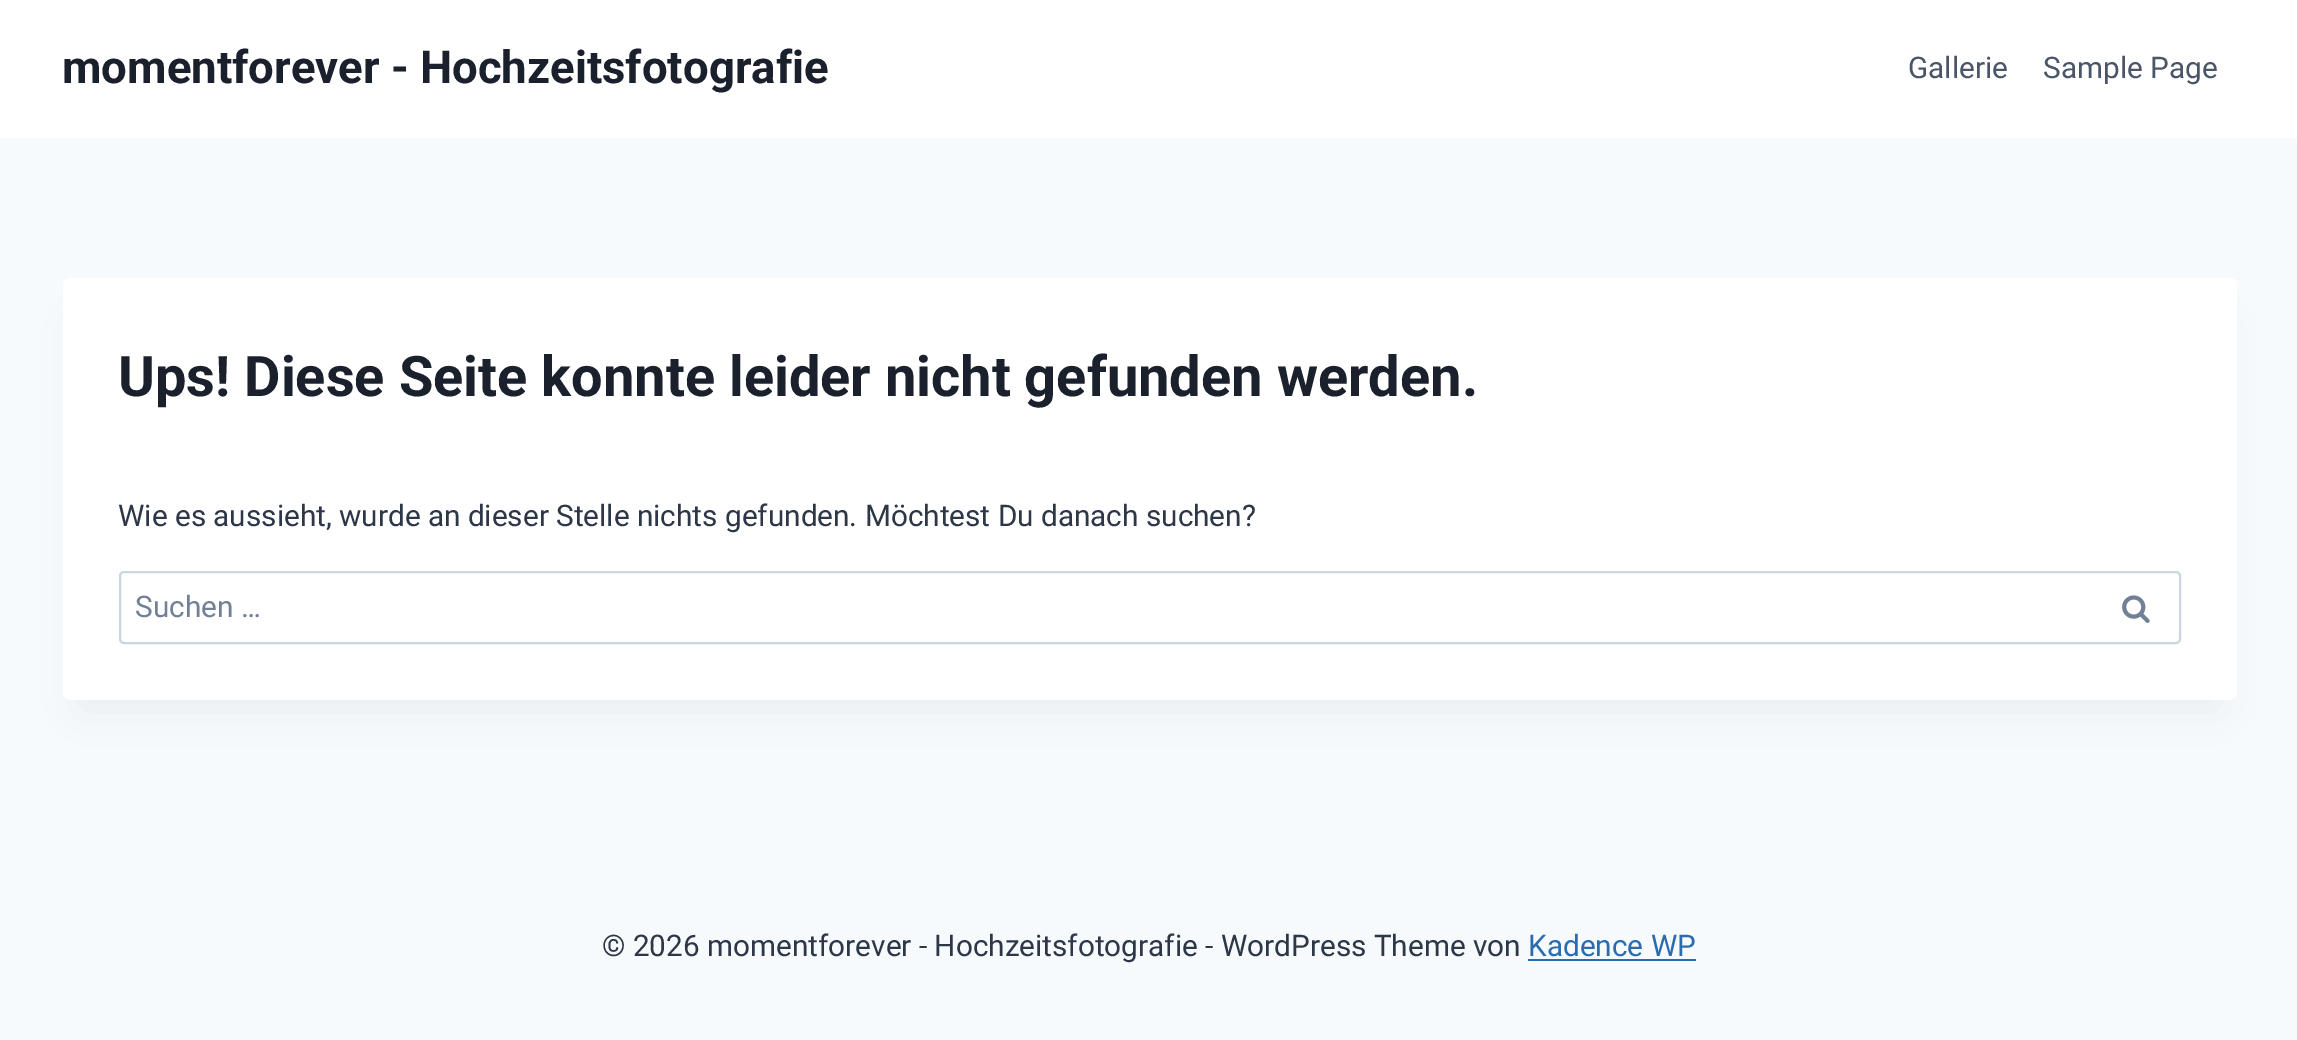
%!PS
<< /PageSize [2297 1040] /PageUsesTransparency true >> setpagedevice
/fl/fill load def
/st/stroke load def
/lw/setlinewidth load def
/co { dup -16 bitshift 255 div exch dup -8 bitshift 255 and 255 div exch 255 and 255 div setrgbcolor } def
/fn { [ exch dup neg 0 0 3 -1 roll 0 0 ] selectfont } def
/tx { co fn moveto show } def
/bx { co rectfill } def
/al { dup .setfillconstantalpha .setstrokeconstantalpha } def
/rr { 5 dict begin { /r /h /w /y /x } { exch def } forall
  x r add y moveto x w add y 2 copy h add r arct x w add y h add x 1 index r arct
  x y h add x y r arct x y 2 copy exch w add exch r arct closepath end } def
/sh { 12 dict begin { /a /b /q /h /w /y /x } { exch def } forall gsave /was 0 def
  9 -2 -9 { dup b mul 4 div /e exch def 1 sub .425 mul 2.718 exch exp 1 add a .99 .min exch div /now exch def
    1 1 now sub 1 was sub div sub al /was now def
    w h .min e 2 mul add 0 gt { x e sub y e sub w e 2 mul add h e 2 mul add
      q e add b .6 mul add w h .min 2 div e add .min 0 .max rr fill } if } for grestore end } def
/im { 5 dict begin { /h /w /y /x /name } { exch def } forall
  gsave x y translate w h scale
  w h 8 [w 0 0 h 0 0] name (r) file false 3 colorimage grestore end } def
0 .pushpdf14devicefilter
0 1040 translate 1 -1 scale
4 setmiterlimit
0 0 2297 1040 16#F7FAFC bx
0 0 2297 138 16#FFFFFF bx
16#000000 co
81 322 2138 387 0 22 .05 sh
16#FFFFFF co
63 278 2174 422 7 rr fl
16#CBD5E0 co
2 lw
120 572 2060 71 4 rr st
(media/1.raw) 2122 595 28 28 im
1528 959 168 2 16#2B6CB0 bx
(momentforever - Hochzeitsfotografie) 62 83 /Roboto-Bold 45.5 16#1A202C tx
(Gallerie) 1908 78 /Roboto-Regular 29.75 16#4A5568 tx
(Sample Page) 2043 78 /Roboto-Regular 29.75 16#4A5568 tx
(Ups! Diese Seite konnte leider nicht gefunden werden.) 118 396 /Roboto-Bold 56 16#1A202C tx
(Wie es aussieht, wurde an dieser Stelle nichts gefunden. Möchtest Du danach suchen?) 118 526 /Roboto-Regular 29.75 16#2D3748 tx
(Suchen …) 135 617 /Roboto-Regular 29.75 16#718096 tx
(© 2026 momentforever - Hochzeitsfotografie - WordPress Theme von) 602 956 /Roboto-Regular 29.75 16#2D3748 tx
(Kadence WP) 1528 956 /Roboto-Regular 29.75 16#2B6CB0 tx
.poppdf14devicefilter showpage
